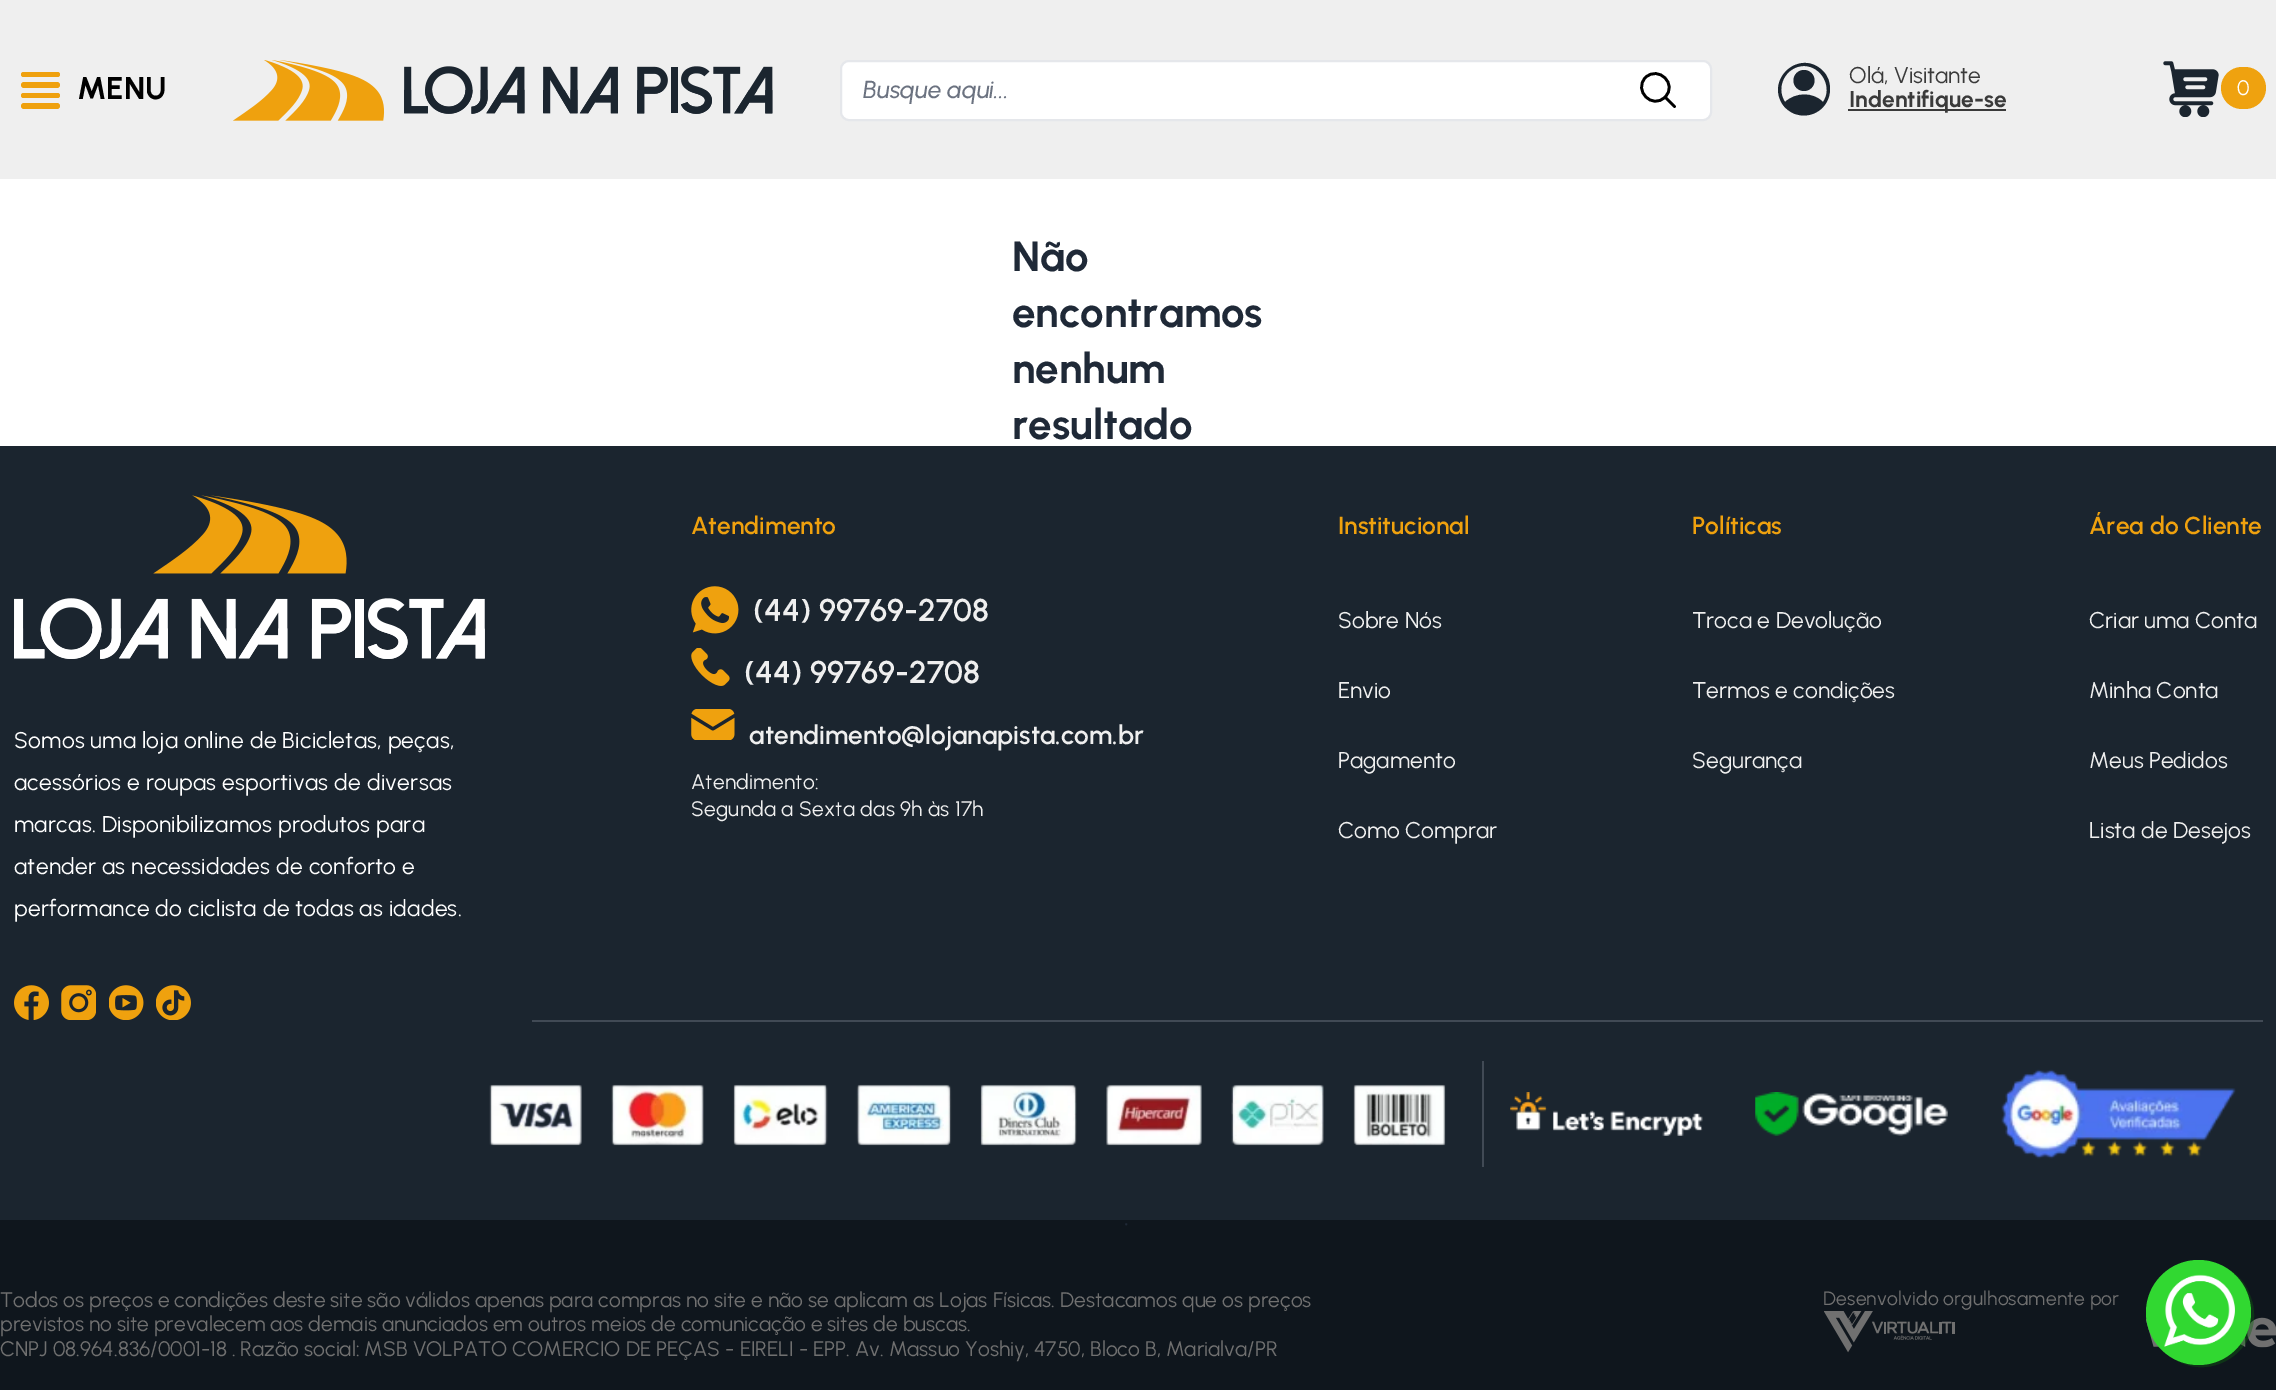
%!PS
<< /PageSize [2276 1390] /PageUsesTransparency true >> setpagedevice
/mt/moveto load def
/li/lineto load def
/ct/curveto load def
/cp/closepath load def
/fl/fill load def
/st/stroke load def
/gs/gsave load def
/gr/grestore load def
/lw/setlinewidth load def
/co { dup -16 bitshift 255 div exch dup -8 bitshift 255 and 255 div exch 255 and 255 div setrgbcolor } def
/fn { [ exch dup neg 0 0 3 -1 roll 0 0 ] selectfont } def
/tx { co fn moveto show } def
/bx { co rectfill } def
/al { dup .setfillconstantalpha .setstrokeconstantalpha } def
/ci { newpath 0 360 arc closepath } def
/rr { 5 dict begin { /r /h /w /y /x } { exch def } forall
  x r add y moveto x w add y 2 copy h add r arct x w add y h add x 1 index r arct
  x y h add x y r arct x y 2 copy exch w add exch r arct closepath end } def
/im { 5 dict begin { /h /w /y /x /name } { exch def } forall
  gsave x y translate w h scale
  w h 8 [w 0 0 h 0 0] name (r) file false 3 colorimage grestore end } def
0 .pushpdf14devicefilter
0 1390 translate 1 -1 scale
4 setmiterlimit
0 0 2276 1390 16#FFFFFF bx
0 0 2276 179 16#EFEFEF bx
16#EFA10E co
21 72 39 5 2.5 rr fl
21 82 39 6 3 rr fl
21 93 39 5 2.5 rr fl
21 103 39 6 3 rr fl
(media/1.raw) 233 60 540 61 im
16#FFFFFF co
841 61 870 59 8 rr gs fl gr
16#E5E7EB co
2 lw
st
16#000000 co
2.7 lw
1 setlinecap
1 setlinejoin
1674.5 106.5 mt 1665 97 li 1665 97 mt 1678 84.5 1658.5 65 1645.5 77.5 ct 1633 90.5 1652.5 110 1665 97 ct cp st
16#1B252F co
1804 80.5 10.5 ci fl
1830 89 mt 1830 82 1828 76 1823 71 ct 1800 48 1765 79 1783 105 ct 1786 109 1790 112 1795 114 ct 1799 115 li 1815 118 1830 106 1830 89 ct cp 1804 66 mt 1822 66 1833 88 1823 102 ct 1813 92 1796 92 1785 102 ct 1775 87 1786 66 1804 66 ct cp fl
1848 109 158 2 16#3A3A3A bx
(media/2.raw) 2163 61 56 56 im
16#EFA20F co
2221 67 45 42 21 rr fl
0 446 2276 774 16#1B252F bx
(media/3.raw) 691 586 48 48 im
(media/4.raw) 691 648 39 38 im
(media/5.raw) 691 709 44 31 im
(media/6.raw) 14 495 471 164 im
(media/7.raw) 14 985 35 35 im
(media/8.raw) 61 985 35 35 im
(media/9.raw) 109 985 35 35 im
(media/10.raw) 156 985 35 35 im
532 1020 1731 2 16#414A55 bx
1482 1061 2 106 16#414A55 bx
(media/11.raw) 489 1084 957 62 im
(media/12.raw) 1510 1092 193 44 im
(media/13.raw) 1755 1092 193 44 im
(media/14.raw) 2001 1069 235 90 im
0 1220 2276 170 16#0F161D bx
(media/15.raw) 1824 1311 131 42 im
(media/16.raw) 2146 1317 130 31 im
0.39 al
16#0D630D co
2174 1359 mt 2217 1386 2271 1341 2249 1293 ct 2245 1282 2236 1273 2226 1268 ct 2235 1274 2242 1282 2247 1293 ct 2265 1338 2216 1381 2174 1359 ct cp fl
1 al
16#31D831 co
2198.5 1312.5 52.5 ci fl
(media/17.raw) 2164 1274 71 73 im
(MENU) 77 99 /Urbanist-Bold 31.5 16#000000 tx
(Busque aqui...) 863 98 /Urbanist-MediumItalic 24.5 16#6B7280 tx
(Olá, Visitante) 1849 83 /Urbanist-Regular 22.75 16#3A3A3A tx
(Indentifique-se) 1849 107 /Urbanist-Bold 22.75 16#3A3A3A tx
(0) 2237 95 /Urbanist-Regular 21 16#FFFFFF tx
(Não) 1012 271 /Urbanist-Bold 42 16#1F2937 tx
(encontramos) 1012 327 /Urbanist-Bold 42 16#1F2937 tx
(nenhum) 1012 383 /Urbanist-Bold 42 16#1F2937 tx
(resultado) 1012 439 /Urbanist-Bold 42 16#1F2937 tx
(.) 1124 1225 /Urbanist-Regular 28 16#1F2937 tx
(Atendimento) 691 534 /Urbanist-SemiBold 24.5 16#EFA10E tx
(\(44\) 99769-2708) 753 621 /Urbanist-SemiBold 31.5 16#EFEFEF tx
(\(44\) 99769-2708) 744 683 /Urbanist-SemiBold 31.5 16#EFEFEF tx
(atendimento@lojanapista.com.br) 749 744 /Urbanist-SemiBold 26.25 16#EFEFEF tx
/Urbanist-Regular 21 fn
691 789 mt .2 0 (Atendimento:) ashow
691 816 mt .2 0 (Segunda a Sexta das 9h às 17h) ashow
(Institucional) 1338 534 /Urbanist-SemiBold 24.5 16#EFA10E tx
(Sobre Nós) 1338 628 /Urbanist-Regular 22.75 16#EFEFEF tx
(Envio) 1338 698 /Urbanist-Regular 22.75 16#EFEFEF tx
(Pagamento) 1338 768 /Urbanist-Regular 22.75 16#EFEFEF tx
(Como Comprar) 1338 838 /Urbanist-Regular 22.75 16#EFEFEF tx
(Políticas) 1692 534 /Urbanist-SemiBold 24.5 16#EFA10E tx
(Troca e Devolução) 1692 628 /Urbanist-Regular 22.75 16#EFEFEF tx
(Termos e condições) 1692 698 /Urbanist-Regular 22.75 16#EFEFEF tx
(Segurança) 1692 768 /Urbanist-Regular 22.75 16#EFEFEF tx
(Área do Cliente) 2089 534 /Urbanist-SemiBold 24.5 16#EFA10E tx
(Criar uma Conta) 2089 628 /Urbanist-Regular 22.75 16#EFEFEF tx
(Minha Conta) 2089 698 /Urbanist-Regular 22.75 16#EFEFEF tx
(Meus Pedidos) 2089 768 /Urbanist-Regular 22.75 16#EFEFEF tx
(Lista de Desejos) 2089 838 /Urbanist-Regular 22.75 16#EFEFEF tx
16#FFFFFF co
14 748 mt .25 0 (Somos uma loja online de Bicicletas, peças,) ashow
14 790 mt .25 0 (acessórios e roupas esportivas de diversas) ashow
14 832 mt .25 0 (marcas. Disponibilizamos produtos para) ashow
14 874 mt .25 0 (atender as necessidades de conforto e) ashow
14 916 mt .25 0 (performance do ciclista de todas as idades.) ashow
(Todos os preços e condições deste site são válidos apenas para compras no site e não se aplicam as Lojas Físicas. Destacamos que os preços) 0 1307 /Urbanist-Regular 21 16#707070 tx
(previstos no site prevalecem aos demais anunciados em outros meios de comunicação e sites de buscas.) 0 1331 /Urbanist-Regular 21 16#707070 tx
(CNPJ 08.964.836/0001-18 . Razão social: MSB VOLPATO COMERCIO DE PEÇAS - EIRELI - EPP. Av. Massuo Yoshiy, 4750, Bloco B, Marialva/PR) 0 1356 /Urbanist-Regular 21 16#707070 tx
/Urbanist-Regular 19.25 fn
1823 1305 mt .2 0 (Desenvolvido orgulhosamente por) ashow
.poppdf14devicefilter showpage
